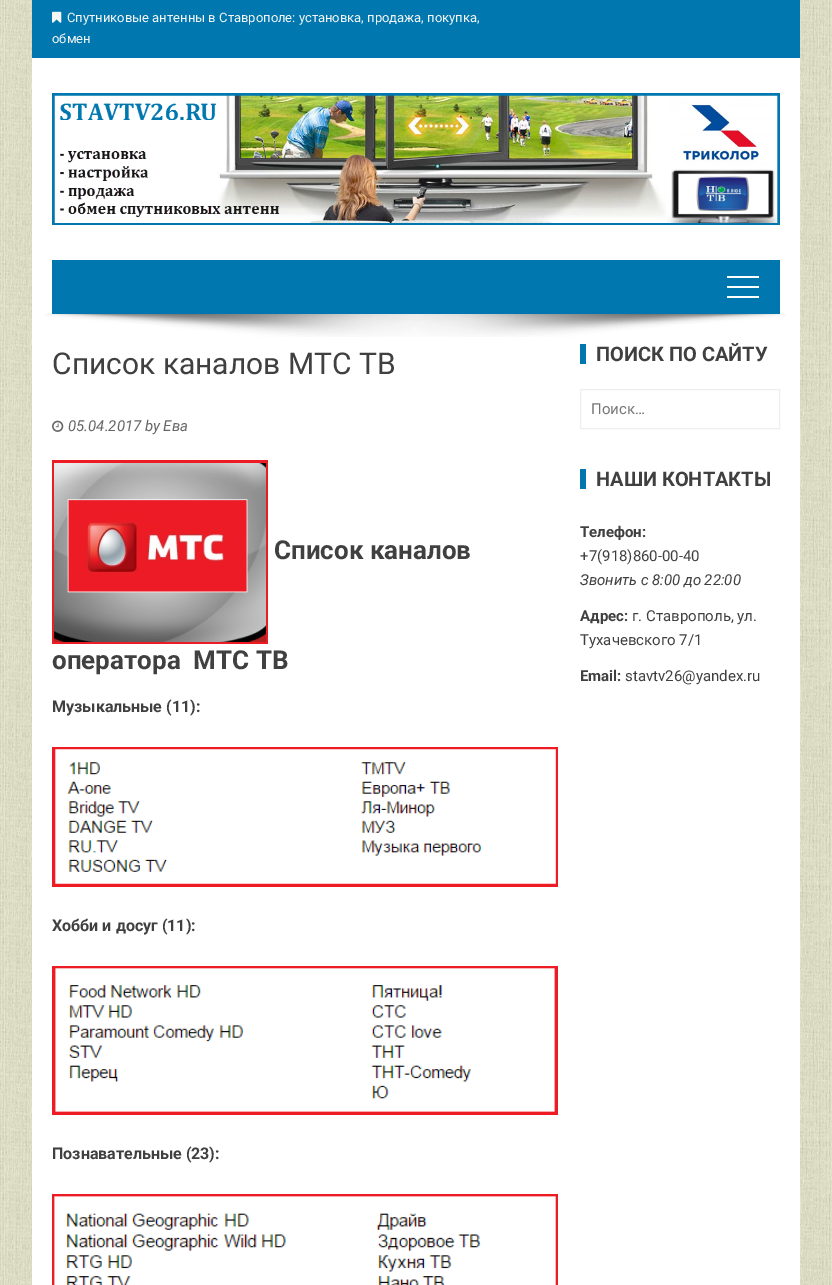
%!PS
<< /PageSize [832 1285] >> setpagedevice
/co { dup -16 bitshift 255 div exch dup -8 bitshift 255 and 255 div exch 255 and 255 div setrgbcolor } def
/fn { [ exch dup neg 0 0 3 -1 roll 0 0 ] selectfont } def
/tx { co fn moveto show } def
/bx { co rectfill } def
/im { 5 dict begin { /h /w /y /x /name } { exch def } forall
  gsave x y translate w h scale
  w h 8 [w 0 0 h 0 0] name (r) file false 3 colorimage grestore end } def
0 1285 translate 1 -1 scale
4 setmiterlimit
0 0 832 1285 16#FFFFFF bx
(media/1.raw) 0 0 832 1285 im
32 58 768 1227 16#FFFFFF bx
32 0 768 58 16#0078AF bx
(media/2.raw) 52 11 10 12 im
(media/3.raw) 52 93 728 132 im
52 260 728 54 16#0078AF bx
727 276 32 2 16#FFFFFF bx
727 296 32 2 16#FFFFFF bx
727 286 32 2 16#FFFFFF bx
(media/4.raw) 45 314 741 23 im
(media/5.raw) 52 420 12 12 im
(media/6.raw) 52 460 216 184 im
(media/7.raw) 52 747 506 140 im
(media/8.raw) 52 966 506 149 im
(media/9.raw) 52 1194 506 91 im
580 344 6 20 16#0078AF bx
16#EEEEEE co
580.5 389.5 199 39 rectstroke
580 469 6 20 16#0078AF bx
(Спутниковые антенны в Ставрополе: установка, продажа, покупка,) 67 22 /Roboto-Regular 13 16#F6F6F6 tx
(обмен) 52 43 /Roboto-Regular 13 16#F6F6F6 tx
(Список каналов МТС ТВ) 52 374 /Roboto-Regular 30 16#404040 tx
(05.04.2017 by Ева) 68 431 /Roboto-Italic 15 16#666666 tx
(Список каналов) 274 559 /Roboto-Bold 26 16#404040 tx
(оператора  МТС ТВ) 52 669 /Roboto-Bold 26 16#404040 tx
(Музыкальные \(11\):) 52 712 /Roboto-Bold 16 16#404040 tx
(Хобби и досуг \(11\):) 52 931 /Roboto-Bold 16 16#404040 tx
(Познавательные \(23\):) 52 1159 /Roboto-Bold 16 16#404040 tx
(ПОИСК ПО САЙТУ) 596 361 /Roboto-Bold 20 16#404040 tx
(Поиск…) 591 414 /Roboto-Regular 15 16#757575 tx
(НАШИ КОНТАКТЫ) 596 486 /Roboto-Bold 20 16#404040 tx
(Телефон:) 580 537 /Roboto-Bold 15 16#404040 tx
(+7\(918\)860-00-40) 580 561 /Roboto-Regular 15 16#404040 tx
(Звонить с 8:00 до 22:00) 580 585 /Roboto-Italic 15 16#404040 tx
(Адрес:) 580 621 /Roboto-Bold 15 16#404040 tx
(г. Ставрополь, ул.) 632 621 /Roboto-Regular 15 16#404040 tx
(Тухачевского 7/1) 580 645 /Roboto-Regular 15 16#404040 tx
(Email:) 580 681 /Roboto-Bold 15 16#404040 tx
(stavtv26@yandex.ru) 625 681 /Roboto-Regular 15 16#404040 tx
showpage
